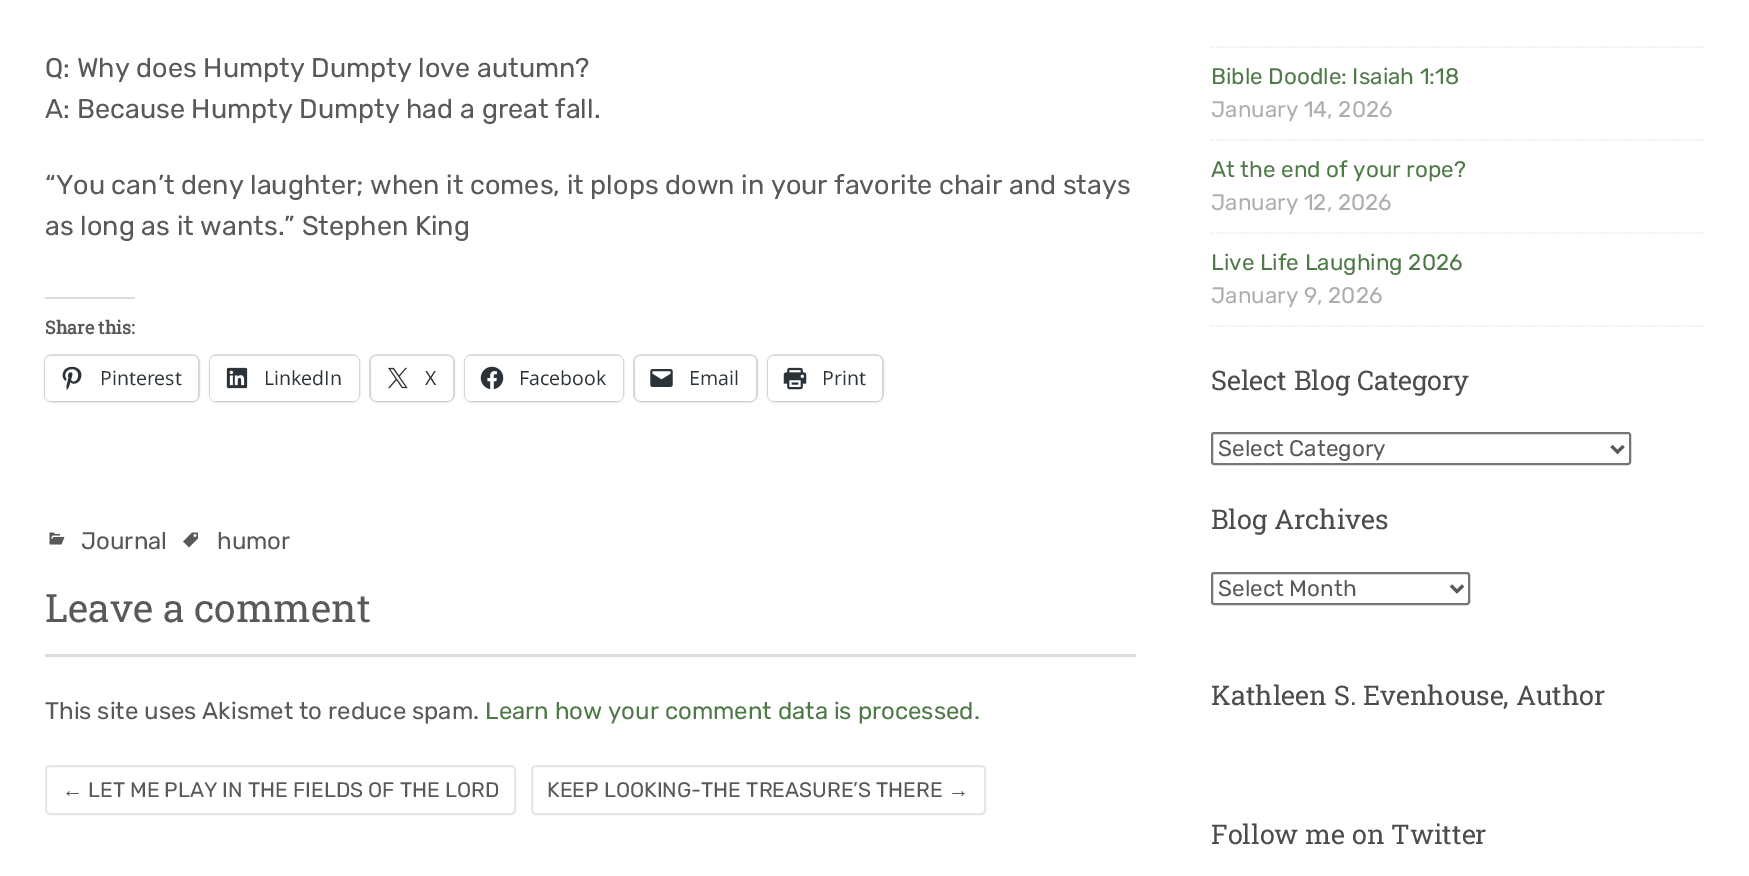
%!PS
<< /PageSize [1749 876] /PageUsesTransparency true >> setpagedevice
/mt/moveto load def
/li/lineto load def
/fl/fill load def
/st/stroke load def
/lw/setlinewidth load def
/co { dup -16 bitshift 255 div exch dup -8 bitshift 255 and 255 div exch 255 and 255 div setrgbcolor } def
/fn { [ exch dup neg 0 0 3 -1 roll 0 0 ] selectfont } def
/tx { co fn moveto show } def
/bx { co rectfill } def
/al { dup .setfillconstantalpha .setstrokeconstantalpha } def
/rr { 5 dict begin { /r /h /w /y /x } { exch def } forall
  x r add y moveto x w add y 2 copy h add r arct x w add y h add x 1 index r arct
  x y h add x y r arct x y 2 copy exch w add exch r arct closepath end } def
/sh { 12 dict begin { /a /b /q /h /w /y /x } { exch def } forall gsave /was 0 def
  9 -2 -9 { dup b mul 4 div /e exch def 1 sub .425 mul 2.718 exch exp 1 add a .99 .min exch div /now exch def
    1 1 now sub 1 was sub div sub al /was now def
    w h .min e 2 mul add 0 gt { x e sub y e sub w e 2 mul add h e 2 mul add
      q e add b .6 mul add w h .min 2 div e add .min 0 .max rr fill } if } for grestore end } def
/im { 5 dict begin { /h /w /y /x /name } { exch def } forall
  gsave x y translate w h scale
  w h 8 [w 0 0 h 0 0] name (r) file false 3 colorimage grestore end } def
0 .pushpdf14devicefilter
0 876 translate 1 -1 scale
4 setmiterlimit
0 0 1749 876 16#FFFFFF bx
45 297 90 2 16#DCDCDE bx
16#E0E0E0 co
2 lw
45 355 154 46 7 rr st
16#000000 co
45 357 153 45 6 1.5 .12 sh
16#FFFFFF co
45 356 153 45 6 rr fl
(media/1.raw) 62 366 20 24 im
16#E0E0E0 co
210 355 149 46 7 rr st
16#000000 co
210 357 149 45 6 1.5 .12 sh
16#FFFFFF co
210 356 149 45 6 rr fl
(media/2.raw) 226 367 22 22 im
16#E0E0E0 co
370 355 84 46 7 rr st
16#000000 co
371 357 82 45 6 1.5 .12 sh
16#FFFFFF co
371 356 82 45 6 rr fl
(media/3.raw) 388 367 20 22 im
16#E0E0E0 co
465 355 158 46 7 rr st
16#000000 co
465 357 158 45 6 1.5 .12 sh
16#FFFFFF co
465 356 158 45 6 rr fl
(media/4.raw) 480 366 24 23 im
16#E0E0E0 co
634 355 123 46 7 rr st
16#000000 co
635 357 121 45 6 1.5 .12 sh
16#FFFFFF co
635 356 121 45 6 rr fl
(media/5.raw) 650 369 23 18 im
16#E0E0E0 co
768 355 115 46 7 rr st
16#000000 co
768 357 114 45 6 1.5 .12 sh
16#FFFFFF co
768 356 114 45 6 rr fl
(media/6.raw) 783 367 24 23 im
(media/7.raw) 49 532 16 13 im
(media/8.raw) 183 532 15 16 im
45 654 1091 3 16#DCDCDE bx
16#E6E6E6 co
46 766 469 48 4 rr st
532 766 453 48 4 rr st
16#EBEBEB co
1.5 lw
[1.5 1.5] 0 setdash
1210.5 47 mt 1704 47 li st
1210.5 140 mt 1704 140 li st
1210.5 233 mt 1704 233 li st
1210.5 326 mt 1704 326 li st
16#767676 co
2 lw
[] 0 setdash
1212 433 418 31 2 rr st
16#595959 co
3 lw
1611.5 446 mt 1617.5 452 li 1623.5 446 li st
16#767676 co
2 lw
1212 573 257 31 2 rr st
16#595959 co
3 lw
1451 585.5 mt 1457 591.5 li 1463 585.5 li st
(Q: Why does Humpty Dumpty love autumn?) 45 77 /Rubik-Regular 27 16#595959 tx
(A: Because Humpty Dumpty had a great fall.) 45 118 /Rubik-Regular 27 16#595959 tx
(“You can’t deny laughter; when it comes, it plops down in your favorite chair and stays) 45 194 /Rubik-Regular 27 16#595959 tx
(as long as it wants.” Stephen King) 45 235 /Rubik-Regular 27 16#595959 tx
(Share this:) 45 334 /RobotoSlab-Bold 18 16#595959 tx
(Pinterest) 100 385 /OpenSans-Regular 19.5 16#2C3338 tx
(LinkedIn) 264 385 /OpenSans-Regular 19.5 16#2C3338 tx
(X) 425 385 /OpenSans-Regular 19.5 16#2C3338 tx
(Facebook) 519 385 /OpenSans-Regular 19.5 16#2C3338 tx
(Email) 689 385 /OpenSans-Regular 19.5 16#2C3338 tx
(Print) 822 385 /OpenSans-Regular 19.5 16#2C3338 tx
(Journal) 81 549 /Rubik-Regular 24 16#595959 tx
(humor) 217 549 /Rubik-Regular 24 16#595959 tx
(Leave a comment) 45 622 /RobotoSlab-Regular 39 16#595959 tx
(This site uses Akismet to reduce spam.) 45 719 /Rubik-Regular 24 16#595959 tx
(Learn how your comment data is processed.) 485 719 /Rubik-Regular 24 16#4E7A47 tx
(←) 62 797 /LiberationSans-Regular 21 16#595959 tx
(LET ME PLAY IN THE FIELDS OF THE LORD) 88 797 /Rubik-Regular 21 16#595959 tx
(KEEP LOOKING-THE TREASURE’S THERE) 547 797 /Rubik-Regular 21 16#595959 tx
(→) 948 797 /LiberationSans-Regular 21 16#595959 tx
(Bible Doodle: Isaiah 1:18) 1211 84 /Rubik-Regular 22.5 16#4E7A47 tx
(January 14, 2026) 1211 117 /Rubik-Regular 22.5 16#AEAEAE tx
(At the end of your rope?) 1211 177 /Rubik-Regular 22.5 16#4E7A47 tx
(January 12, 2026) 1211 210 /Rubik-Regular 22.5 16#AEAEAE tx
(Live Life Laughing 2026) 1211 270 /Rubik-Regular 22.5 16#4E7A47 tx
(January 9, 2026) 1211 303 /Rubik-Regular 22.5 16#AEAEAE tx
(Select Blog Category) 1211 390 /RobotoSlab-Regular 27 16#4D4C4C tx
(Select Category) 1218 456 /Rubik-Regular 22.5 16#595959 tx
(Blog Archives) 1211 529 /RobotoSlab-Regular 27 16#4D4C4C tx
(Select Month) 1218 596 /Rubik-Regular 22.5 16#595959 tx
(Kathleen S. Evenhouse, Author) 1211 705 /RobotoSlab-Regular 27 16#4D4C4C tx
(Follow me on Twitter) 1211 844 /RobotoSlab-Regular 27 16#4D4C4C tx
.poppdf14devicefilter showpage
